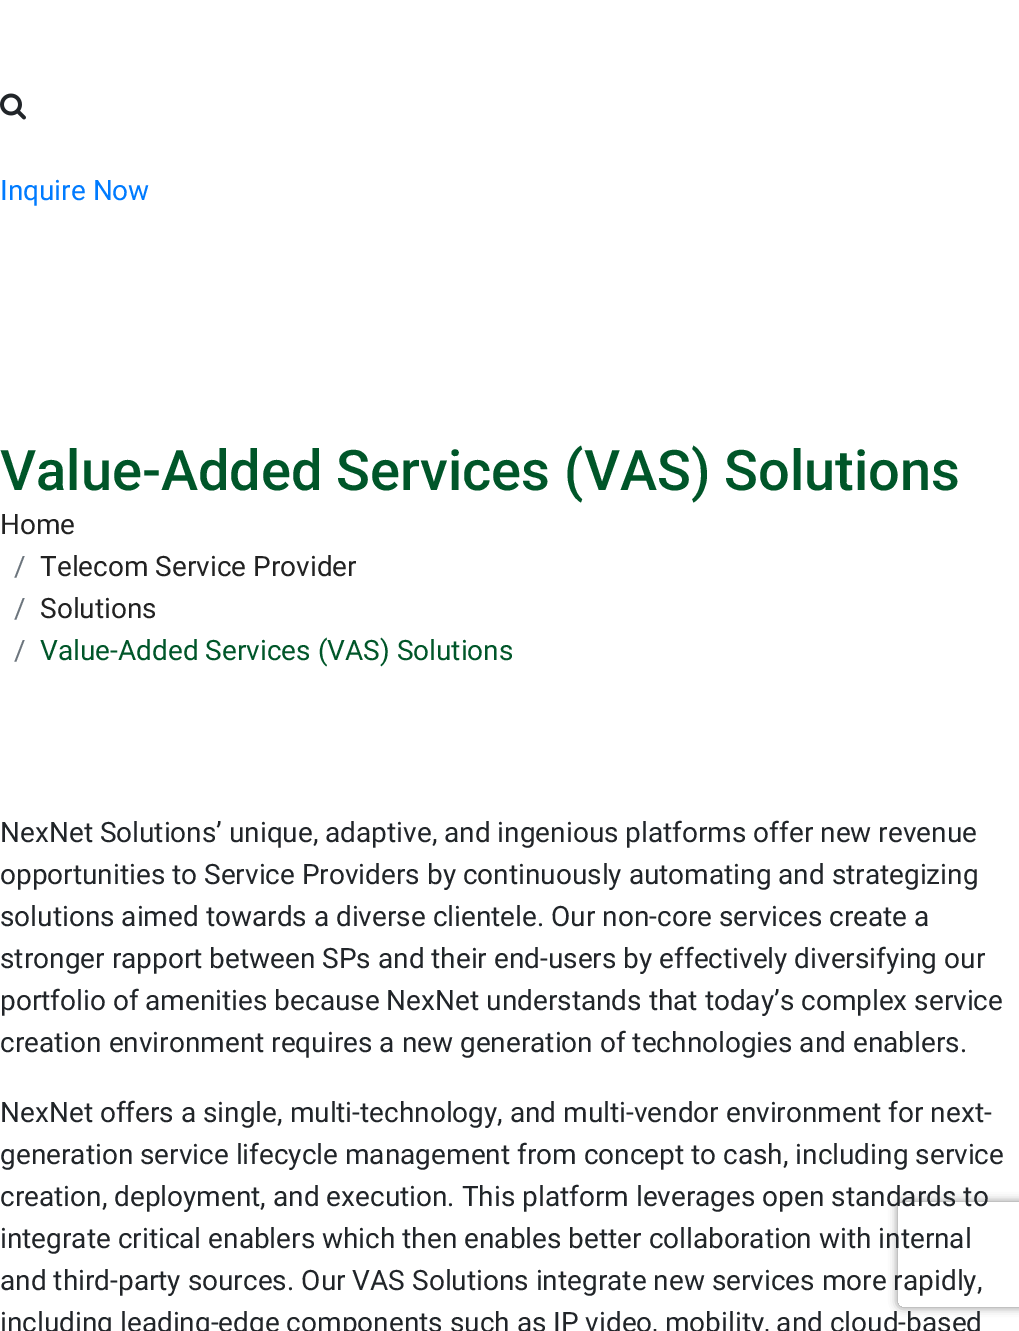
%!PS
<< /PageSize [1019 1331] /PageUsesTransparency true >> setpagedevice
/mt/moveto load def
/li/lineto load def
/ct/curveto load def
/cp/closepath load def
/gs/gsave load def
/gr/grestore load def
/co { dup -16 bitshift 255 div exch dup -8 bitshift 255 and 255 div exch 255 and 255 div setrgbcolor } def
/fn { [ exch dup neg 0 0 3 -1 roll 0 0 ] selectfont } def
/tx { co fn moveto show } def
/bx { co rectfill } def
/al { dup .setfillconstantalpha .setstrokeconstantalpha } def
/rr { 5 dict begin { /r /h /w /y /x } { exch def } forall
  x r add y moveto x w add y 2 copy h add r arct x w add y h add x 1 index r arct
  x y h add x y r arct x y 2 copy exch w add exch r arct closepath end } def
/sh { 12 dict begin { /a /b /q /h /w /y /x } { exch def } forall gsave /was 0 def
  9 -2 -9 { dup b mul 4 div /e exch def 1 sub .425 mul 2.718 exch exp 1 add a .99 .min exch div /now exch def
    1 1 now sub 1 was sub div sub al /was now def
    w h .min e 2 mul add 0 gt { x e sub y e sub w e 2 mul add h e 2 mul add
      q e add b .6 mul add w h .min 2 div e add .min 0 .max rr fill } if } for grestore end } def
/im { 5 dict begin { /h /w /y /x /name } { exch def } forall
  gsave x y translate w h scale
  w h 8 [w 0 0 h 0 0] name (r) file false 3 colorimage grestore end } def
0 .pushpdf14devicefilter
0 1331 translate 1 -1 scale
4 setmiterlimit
0 0 1019 1331 16#FFFFFF bx
(media/1.raw) 0 93 26 27 im
gs
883 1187 mt 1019 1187 li 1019 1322 li 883 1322 li cp 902 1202 mt 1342 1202 li 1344 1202 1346 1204 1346 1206 ct 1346 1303 li 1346 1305 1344 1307 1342 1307 ct 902 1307 li 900 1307 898 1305 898 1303 ct 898 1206 li 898 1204 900 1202 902 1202 ct cp eoclip newpath
16#808080 co
898 1202 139 105 4 4.5 1 sh
gr
(Inquire Now) 0 200 /Roboto-Regular 28 16#007BFF tx
(Value-Added Services \(VAS\) Solutions) 0 490 /Roboto-Medium 56 16#005629 tx
(Home) 0 534 /Roboto-Regular 28 16#222222 tx
(/) 14 576 /Roboto-Regular 28 16#6C757D tx
(Telecom Service Provider) 40 576 /Roboto-Regular 28 16#222222 tx
(/) 14 618 /Roboto-Regular 28 16#6C757D tx
(Solutions) 40 618 /Roboto-Regular 28 16#222222 tx
(/) 14 660 /Roboto-Regular 28 16#6C757D tx
(Value-Added Services \(VAS\) Solutions) 40 660 /Roboto-Regular 28 16#005629 tx
(NexNet Solutions’ unique, adaptive, and ingenious platforms offer new revenue) 0 842 /Roboto-Regular 28 16#212529 tx
(opportunities to Service Providers by continuously automating and strategizing) 0 884 /Roboto-Regular 28 16#212529 tx
(solutions aimed towards a diverse clientele. Our non-core services create a) 0 926 /Roboto-Regular 28 16#212529 tx
(stronger rapport between SPs and their end-users by effectively diversifying our) 0 968 /Roboto-Regular 28 16#212529 tx
(portfolio of amenities because NexNet understands that today’s complex service) 0 1010 /Roboto-Regular 28 16#212529 tx
(creation environment requires a new generation of technologies and enablers.) 0 1052 /Roboto-Regular 28 16#212529 tx
(NexNet offers a single, multi-technology, and multi-vendor environment for next-) 0 1122 /Roboto-Regular 28 16#212529 tx
(generation service lifecycle management from concept to cash, including service) 0 1164 /Roboto-Regular 28 16#212529 tx
(creation, deployment, and execution. This platform leverages open standards to) 0 1206 /Roboto-Regular 28 16#212529 tx
(integrate critical enablers which then enables better collaboration with internal) 0 1248 /Roboto-Regular 28 16#212529 tx
(and third-party sources. Our VAS Solutions integrate new services more rapidly,) 0 1290 /Roboto-Regular 28 16#212529 tx
(including leading-edge components such as IP video, mobility, and cloud-based) 0 1332 /Roboto-Regular 28 16#212529 tx
.poppdf14devicefilter showpage
